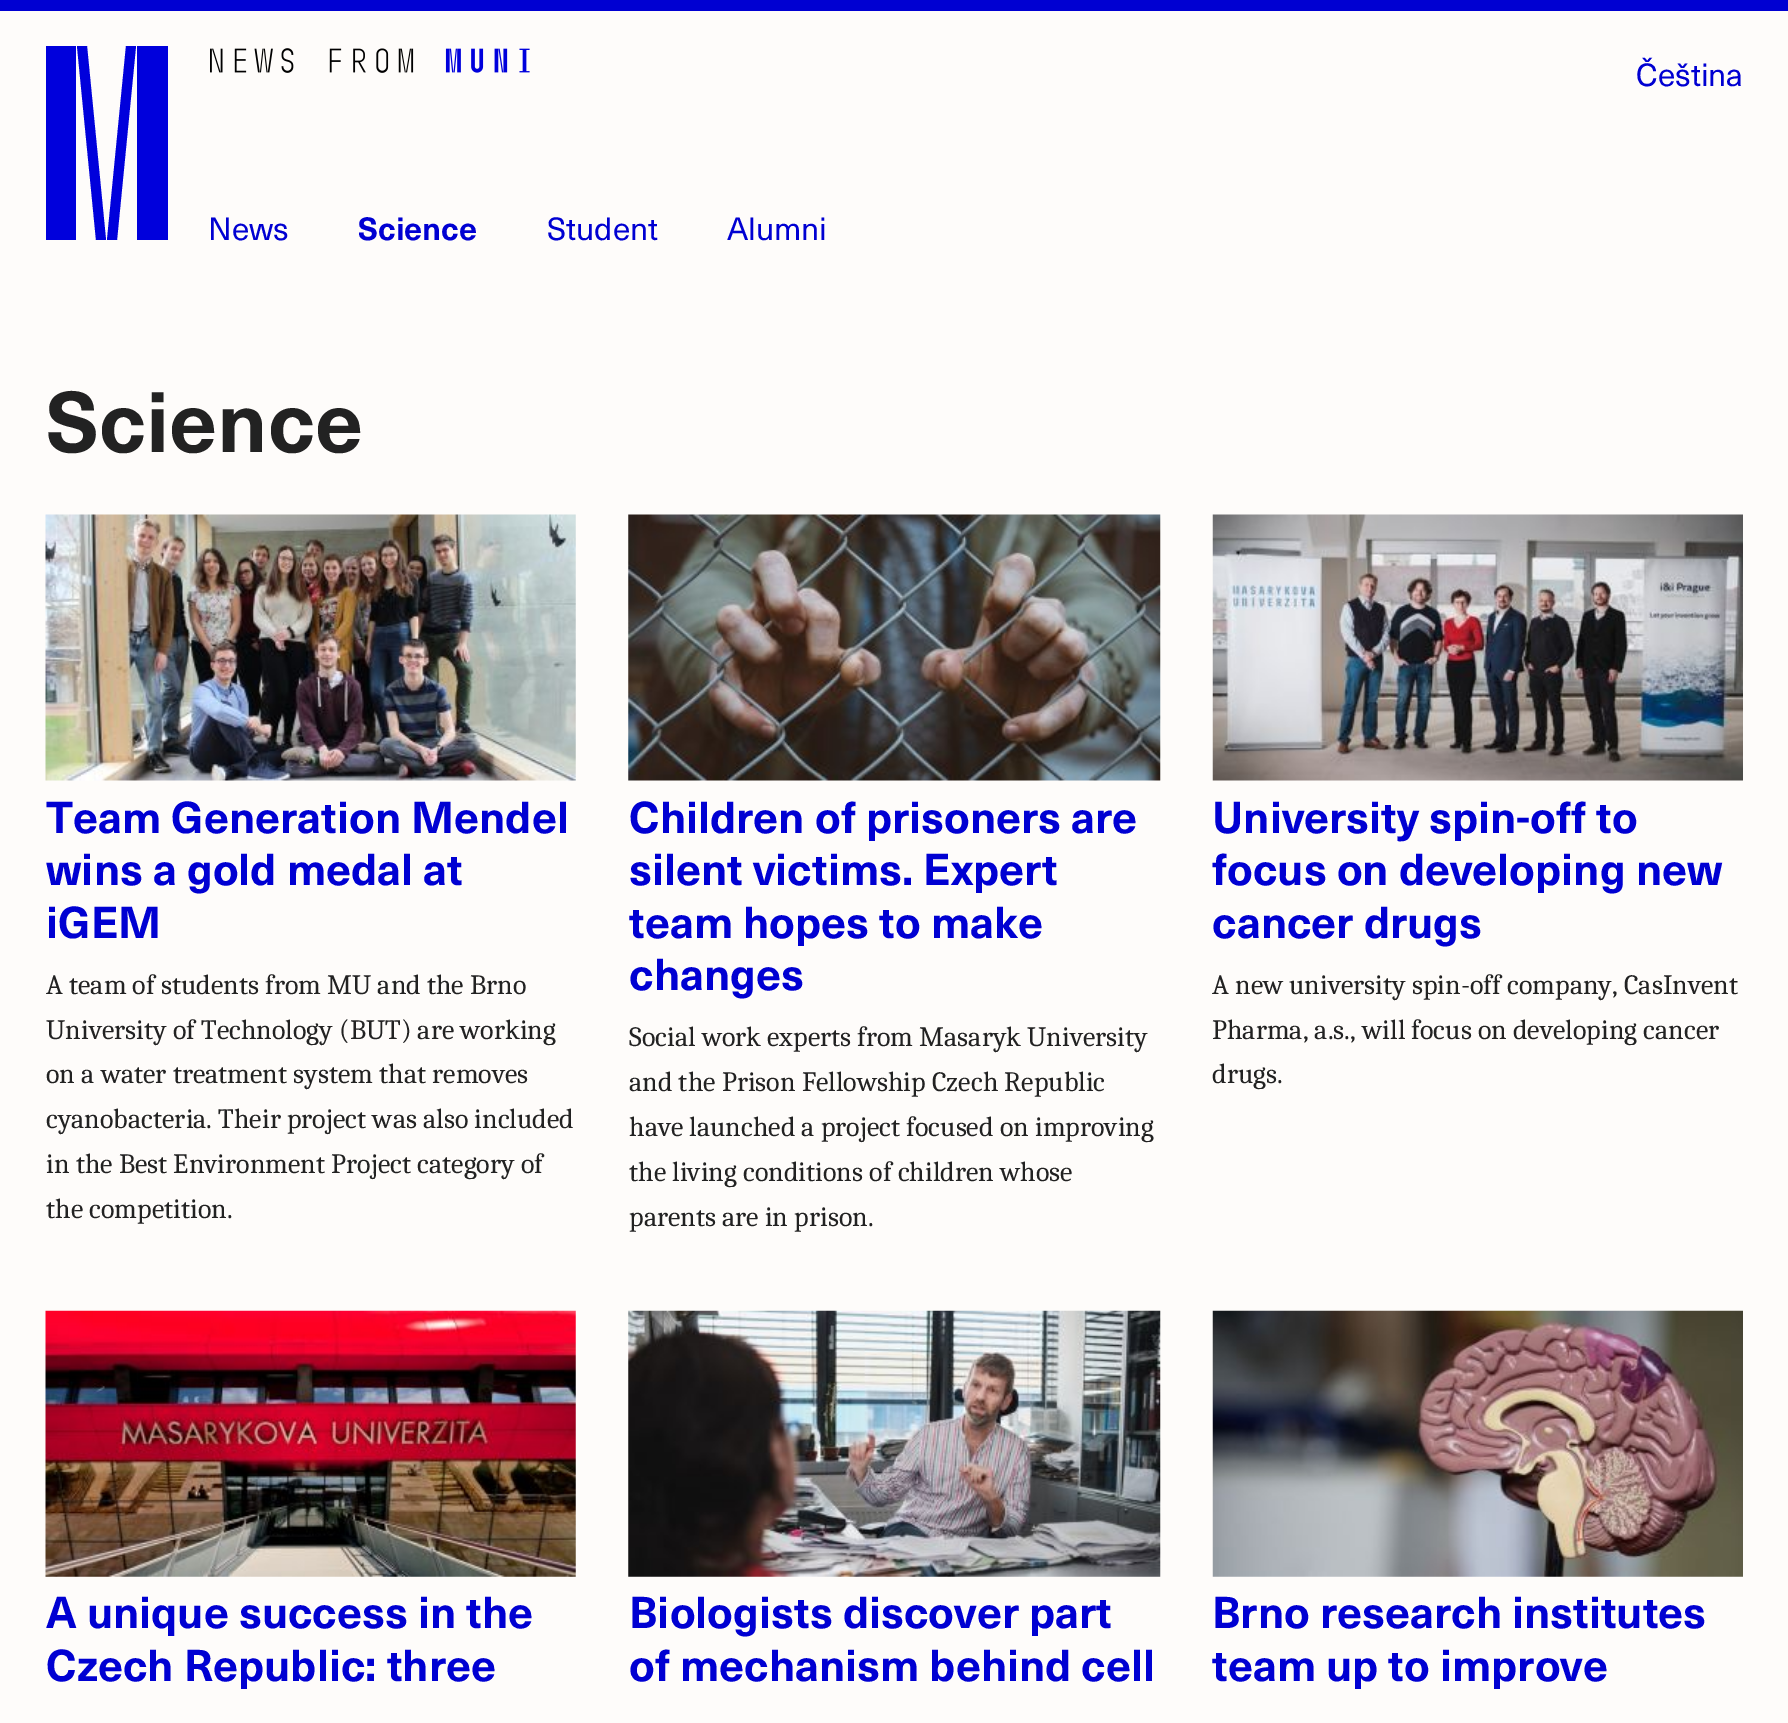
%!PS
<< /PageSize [1788 1723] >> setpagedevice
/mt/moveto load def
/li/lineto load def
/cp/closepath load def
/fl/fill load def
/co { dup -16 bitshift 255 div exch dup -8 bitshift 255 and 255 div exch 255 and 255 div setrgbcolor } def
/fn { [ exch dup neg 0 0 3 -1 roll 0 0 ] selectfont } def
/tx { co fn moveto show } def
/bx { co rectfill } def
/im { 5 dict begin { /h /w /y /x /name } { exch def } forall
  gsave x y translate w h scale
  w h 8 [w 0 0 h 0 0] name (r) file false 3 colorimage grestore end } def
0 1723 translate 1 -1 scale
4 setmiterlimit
0 0 1788 1723 16#FEFCFA bx
0 0 1788 11 16#0000D2 bx
16#0000DC co
46 46 mt 76 46 li 76 240 li 46 240 li cp 77 46 mt 87 46 li 106 240 li 96 240 li cp 126 46 mt 136 46 li 117 240 li 107 240 li cp 137 46 mt 168 46 li 168 240 li 137 240 li cp fl
(media/1.raw) 210 48 320 25 im
(media/2.raw) 45 514 531 267 im
(media/3.raw) 628 514 533 267 im
(media/4.raw) 1212 514 531 267 im
(media/5.raw) 45 1310 531 267 im
(media/6.raw) 628 1310 533 267 im
(media/7.raw) 1212 1310 531 267 im
(Čeština) 1636 86 /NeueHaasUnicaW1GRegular-Regular 31.5 16#0000D2 tx
(News) 208 240 /NeueHaasUnicaW1GRegular-Regular 31.5 16#0000D2 tx
(Science) 358 240 /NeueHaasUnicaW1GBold-Bold 31.5 16#0000D2 tx
(Student) 547 240 /NeueHaasUnicaW1GRegular-Regular 31.5 16#0000D2 tx
(Alumni) 727 240 /NeueHaasUnicaW1GRegular-Regular 31.5 16#0000D2 tx
(Science) 46 452 /NeueHaasUnicaW1GBold-Bold 84 16#222222 tx
(Team Generation Mendel) 46 833 /NeueHaasUnicaW1GBold-Bold 43.75 16#0000D2 tx
(wins a gold medal at) 46 885 /NeueHaasUnicaW1GBold-Bold 43.75 16#0000D2 tx
(iGEM) 46 938 /NeueHaasUnicaW1GBold-Bold 43.75 16#0000D2 tx
(A team of students from MU and the Brno) 46 994 /Caladea-Regular 28 16#222222 tx
(University of Technology \(BUT\) are working) 46 1039 /Caladea-Regular 28 16#222222 tx
(on a water treatment system that removes) 46 1083 /Caladea-Regular 28 16#222222 tx
(cyanobacteria. Their project was also included) 46 1128 /Caladea-Regular 28 16#222222 tx
(in the Best Environment Project category of) 46 1173 /Caladea-Regular 28 16#222222 tx
(the competition.) 46 1218 /Caladea-Regular 28 16#222222 tx
(Children of prisoners are) 629 833 /NeueHaasUnicaW1GBold-Bold 43.75 16#0000D2 tx
(silent victims. Expert) 629 885 /NeueHaasUnicaW1GBold-Bold 43.75 16#0000D2 tx
(team hopes to make) 629 938 /NeueHaasUnicaW1GBold-Bold 43.75 16#0000D2 tx
(changes) 629 990 /NeueHaasUnicaW1GBold-Bold 43.75 16#0000D2 tx
(Social work experts from Masaryk University) 629 1046 /Caladea-Regular 28 16#222222 tx
(and the Prison Fellowship Czech Republic) 629 1091 /Caladea-Regular 28 16#222222 tx
(have launched a project focused on improving) 629 1136 /Caladea-Regular 28 16#222222 tx
(the living conditions of children whose) 629 1181 /Caladea-Regular 28 16#222222 tx
(parents are in prison.) 629 1226 /Caladea-Regular 28 16#222222 tx
(University spin-off to) 1212 833 /NeueHaasUnicaW1GBold-Bold 43.75 16#0000D2 tx
(focus on developing new) 1212 885 /NeueHaasUnicaW1GBold-Bold 43.75 16#0000D2 tx
(cancer drugs) 1212 938 /NeueHaasUnicaW1GBold-Bold 43.75 16#0000D2 tx
(A new university spin-off company, CasInvent) 1212 994 /Caladea-Regular 28 16#222222 tx
(Pharma, a.s., will focus on developing cancer) 1212 1039 /Caladea-Regular 28 16#222222 tx
(drugs.) 1212 1083 /Caladea-Regular 28 16#222222 tx
(A unique success in the) 46 1628 /NeueHaasUnicaW1GBold-Bold 43.75 16#0000D2 tx
(Czech Republic: three) 46 1681 /NeueHaasUnicaW1GBold-Bold 43.75 16#0000D2 tx
(Biologists discover part) 629 1628 /NeueHaasUnicaW1GBold-Bold 43.75 16#0000D2 tx
(of mechanism behind cell) 629 1681 /NeueHaasUnicaW1GBold-Bold 43.75 16#0000D2 tx
(Brno research institutes) 1212 1628 /NeueHaasUnicaW1GBold-Bold 43.75 16#0000D2 tx
(team up to improve) 1212 1681 /NeueHaasUnicaW1GBold-Bold 43.75 16#0000D2 tx
showpage
